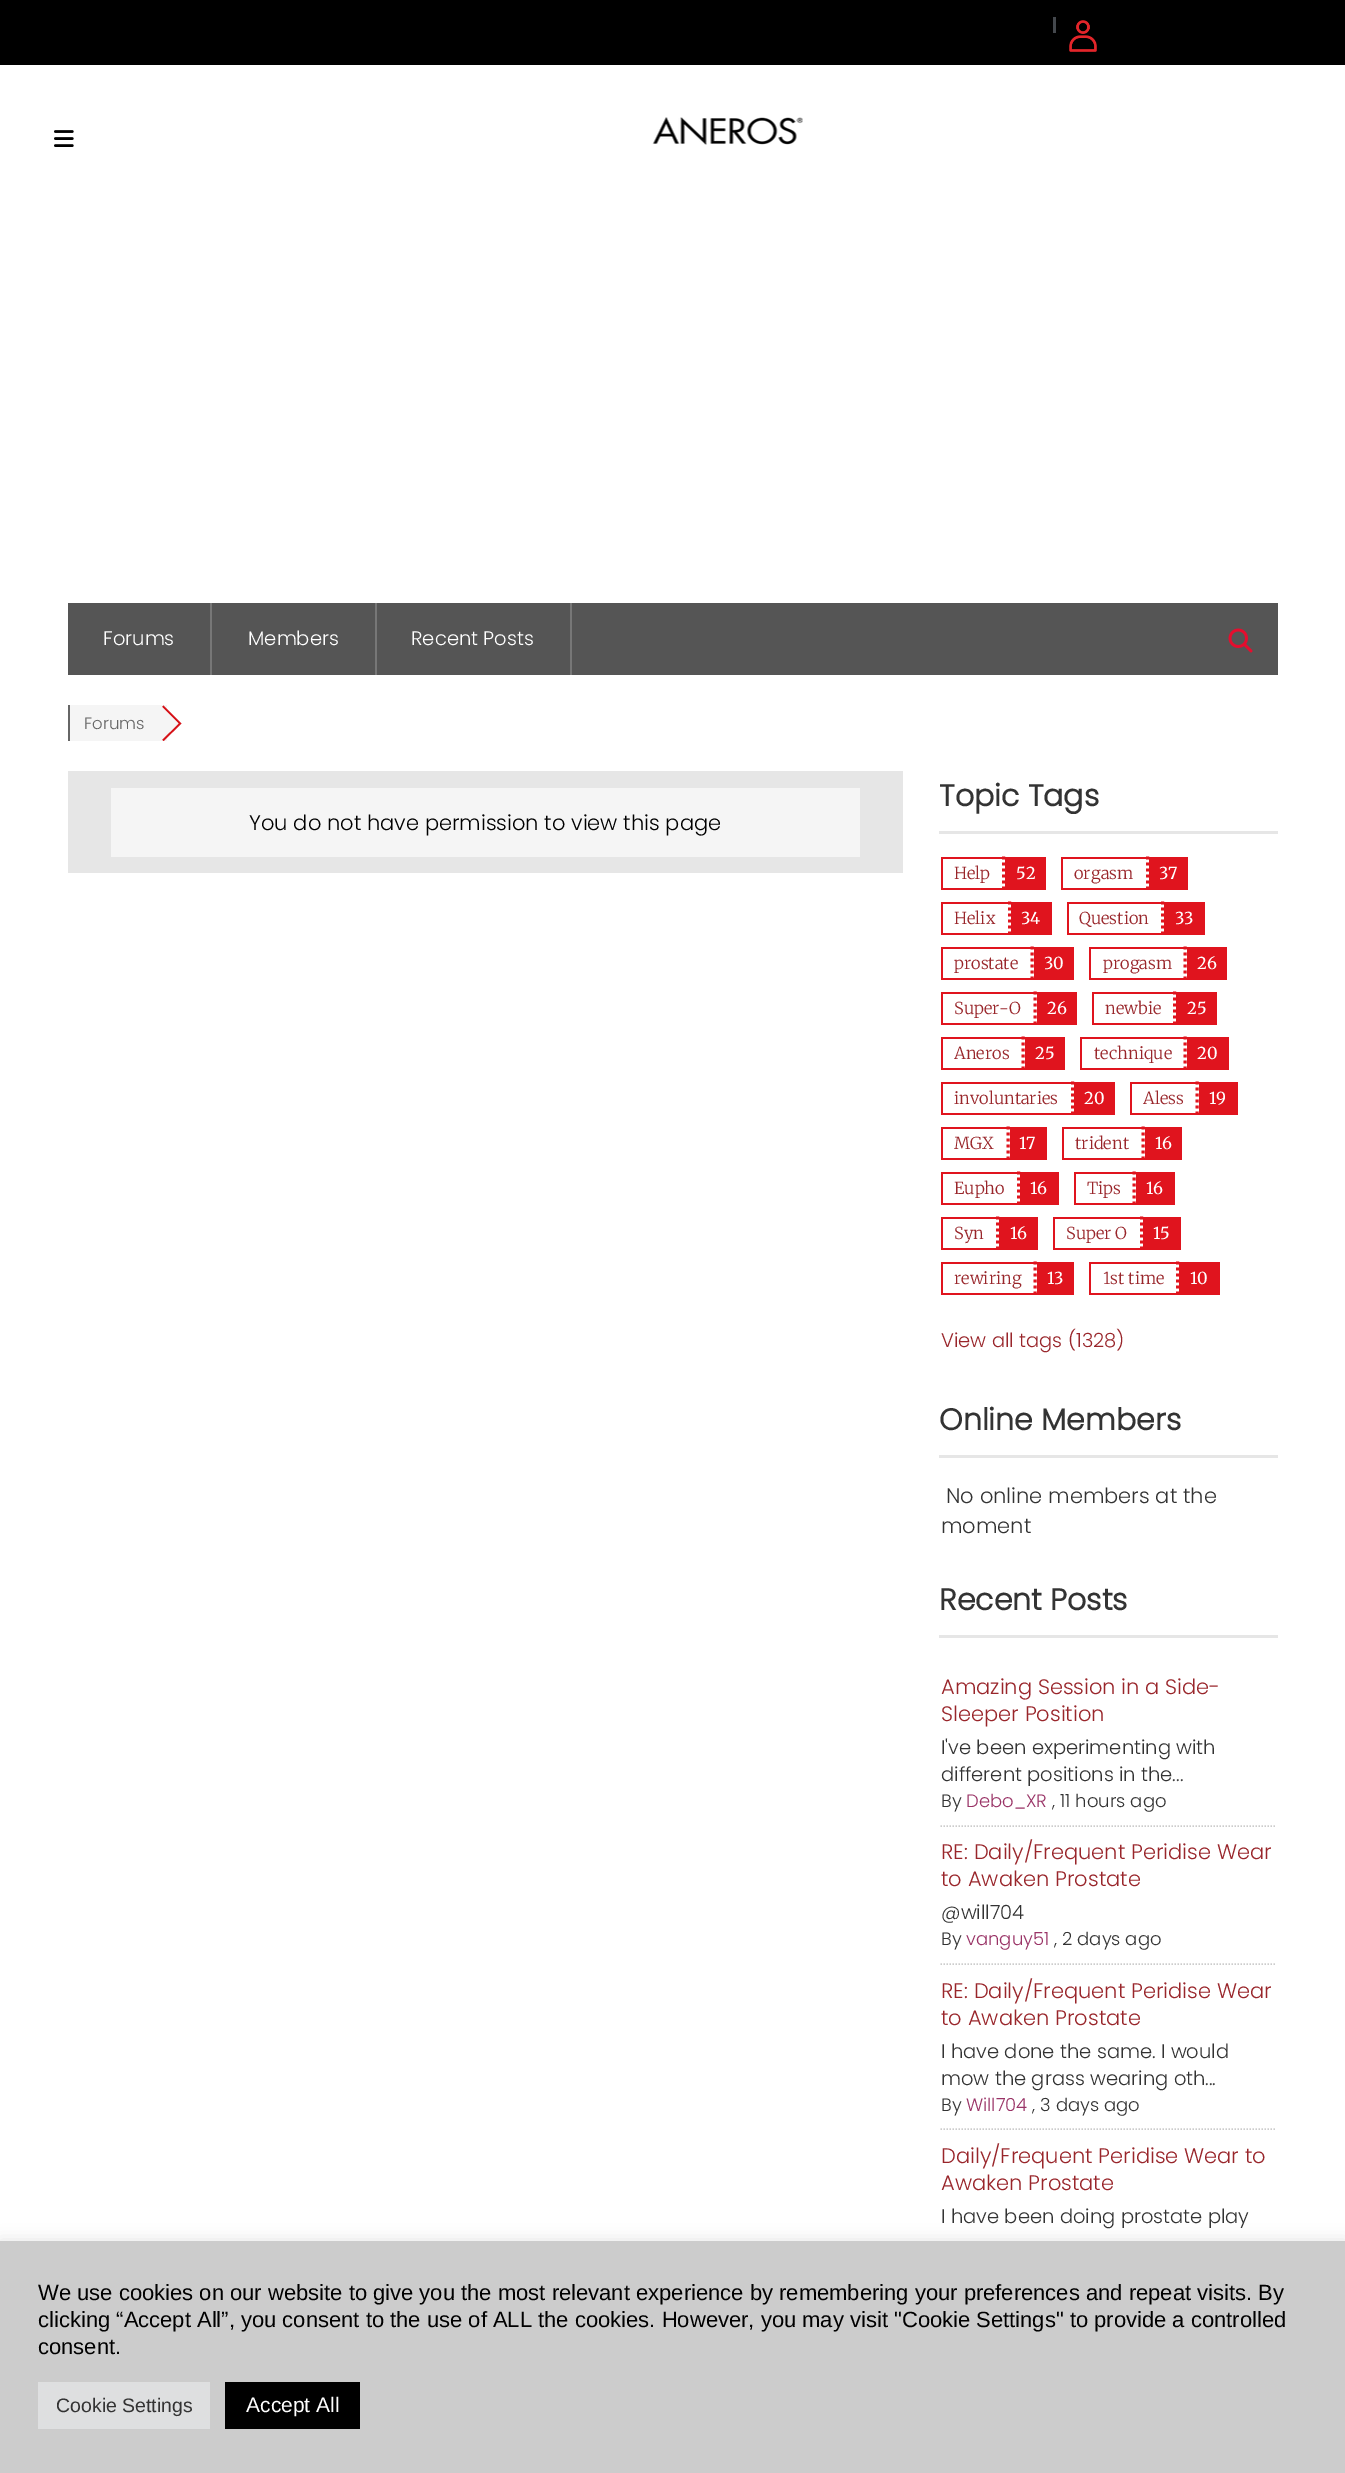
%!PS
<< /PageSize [1345 2473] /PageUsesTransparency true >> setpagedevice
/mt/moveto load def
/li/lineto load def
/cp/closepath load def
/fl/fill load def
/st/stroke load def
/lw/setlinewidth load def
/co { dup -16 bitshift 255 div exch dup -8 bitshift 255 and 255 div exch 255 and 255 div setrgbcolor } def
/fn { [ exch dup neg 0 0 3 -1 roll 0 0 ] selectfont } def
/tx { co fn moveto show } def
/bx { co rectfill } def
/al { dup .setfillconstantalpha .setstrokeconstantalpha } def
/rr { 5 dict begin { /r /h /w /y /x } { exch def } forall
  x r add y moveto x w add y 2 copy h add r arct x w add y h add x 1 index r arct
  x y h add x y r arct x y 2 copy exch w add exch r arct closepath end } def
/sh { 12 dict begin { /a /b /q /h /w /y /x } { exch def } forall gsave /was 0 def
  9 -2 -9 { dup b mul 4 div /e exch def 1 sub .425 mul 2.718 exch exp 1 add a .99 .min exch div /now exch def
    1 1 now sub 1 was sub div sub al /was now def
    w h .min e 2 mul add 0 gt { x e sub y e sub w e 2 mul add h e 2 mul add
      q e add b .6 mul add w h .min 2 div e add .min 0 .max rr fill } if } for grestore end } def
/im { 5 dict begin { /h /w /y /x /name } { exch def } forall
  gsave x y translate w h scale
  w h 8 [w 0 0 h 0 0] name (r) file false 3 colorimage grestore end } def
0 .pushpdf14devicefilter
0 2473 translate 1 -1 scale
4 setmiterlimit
0 0 1345 2473 16#FFFFFF bx
0 0 1345 65 16#000000 bx
1053 17 3 16 16#44484D bx
(media/1.raw) 1069 20 28 32 im
(media/2.raw) 54 130 20 17 im
(media/3.raw) 652 117 151 28 im
68 603 1210 72 16#555555 bx
210 603 2 72 16#777777 bx
375 603 2 72 16#777777 bx
570 603 2 72 16#777777 bx
(media/4.raw) 1228 628 25 25 im
70 705 97 36 16#F5F5F5 bx
68 705 2 36 16#666666 bx
16#D61319 co
163.5 705.5 mt 162 707 li 178.5 723.5 li 162 739.5 li 163.5 741 li 181.5 723.5 li cp fl
68 771 835 102 16#E6E6E6 bx
111 788 749 69 16#F5F5F5 bx
939 831 339 3 16#E6E6E6 bx
941 857 64 2 16#E0141E bx
3 lw
[3 3] 0 setdash
1003.5 856.5 mt 1003.5 889.5 li st
941 888 64 2 16#E0141E bx
941 857 2 33 16#E0141E bx
1005 857 41 33 16#E0141E bx
1061 857 88 2 16#E0141E bx
1147.5 856.5 mt 1147.5 889.5 li st
1061 888 88 2 16#E0141E bx
1061 857 2 33 16#E0141E bx
1149 857 39 33 16#E0141E bx
941 902 70 2 16#E0141E bx
1009.5 901.5 mt 1009.5 934.5 li st
941 933 70 2 16#E0141E bx
941 902 2 33 16#E0141E bx
1011 902 41 33 16#E0141E bx
1067 902 97 2 16#E0141E bx
1162.5 901.5 mt 1162.5 934.5 li st
1067 933 97 2 16#E0141E bx
1067 902 2 33 16#E0141E bx
1164 902 41 33 16#E0141E bx
941 947 93 2 16#E0141E bx
1032 946.5 mt 1032 979.5 li st
941 978 93 2 16#E0141E bx
941 947 2 33 16#E0141E bx
1034 947 40 33 16#E0141E bx
1089 947 98 2 16#E0141E bx
1185 946.5 mt 1185 979.5 li st
1089 978 98 2 16#E0141E bx
1089 947 2 33 16#E0141E bx
1187 947 40 33 16#E0141E bx
941 992 96 2 16#E0141E bx
1035 991.5 mt 1035 1024.5 li st
941 1023 96 2 16#E0141E bx
941 992 2 33 16#E0141E bx
1037 992 40 33 16#E0141E bx
1092 992 84 2 16#E0141E bx
1174.5 991.5 mt 1174.5 1024.5 li st
1092 1023 84 2 16#E0141E bx
1092 992 2 33 16#E0141E bx
1176 992 41 33 16#E0141E bx
941 1037 84 2 16#E0141E bx
1023 1036.5 mt 1023 1069.5 li st
941 1068 84 2 16#E0141E bx
941 1037 2 33 16#E0141E bx
1025 1037 40 33 16#E0141E bx
1080 1037 107 2 16#E0141E bx
1185 1036.5 mt 1185 1069.5 li st
1080 1068 107 2 16#E0141E bx
1080 1037 2 33 16#E0141E bx
1187 1037 42 33 16#E0141E bx
941 1082 133 2 16#E0141E bx
1072.5 1081.5 mt 1072.5 1114.5 li st
941 1113 133 2 16#E0141E bx
941 1082 2 33 16#E0141E bx
1074 1082 41 33 16#E0141E bx
1130 1082 69 2 16#E0141E bx
1197 1081.5 mt 1197 1114.5 li st
1130 1113 69 2 16#E0141E bx
1130 1082 2 33 16#E0141E bx
1199 1082 39 33 16#E0141E bx
941 1127 69 2 16#E0141E bx
1008 1126.5 mt 1008 1159.5 li st
941 1158 69 2 16#E0141E bx
941 1127 2 33 16#E0141E bx
1010 1127 37 33 16#E0141E bx
1062 1127 83 2 16#E0141E bx
1143 1126.5 mt 1143 1159.5 li st
1062 1158 83 2 16#E0141E bx
1062 1127 2 33 16#E0141E bx
1145 1127 37 33 16#E0141E bx
941 1172 79 2 16#E0141E bx
1018.5 1171.5 mt 1018.5 1204.5 li st
941 1203 79 2 16#E0141E bx
941 1172 2 33 16#E0141E bx
1020 1172 39 33 16#E0141E bx
1074 1172 62 2 16#E0141E bx
1134 1171.5 mt 1134 1204.5 li st
1074 1203 62 2 16#E0141E bx
1074 1172 2 33 16#E0141E bx
1136 1172 39 33 16#E0141E bx
941 1217 58 2 16#E0141E bx
997.5 1216.5 mt 997.5 1249.5 li st
941 1248 58 2 16#E0141E bx
941 1217 2 33 16#E0141E bx
999 1217 39 33 16#E0141E bx
1053 1217 90 2 16#E0141E bx
1141.5 1216.5 mt 1141.5 1249.5 li st
1053 1248 90 2 16#E0141E bx
1053 1217 2 33 16#E0141E bx
1143 1217 38 33 16#E0141E bx
941 1262 96 2 16#E0141E bx
1035 1261.5 mt 1035 1294.5 li st
941 1293 96 2 16#E0141E bx
941 1262 2 33 16#E0141E bx
1037 1262 37 33 16#E0141E bx
1089 1262 90 2 16#E0141E bx
1177.5 1261.5 mt 1177.5 1294.5 li st
1089 1293 90 2 16#E0141E bx
1089 1262 2 33 16#E0141E bx
1179 1262 41 33 16#E0141E bx
939 1455 339 3 16#E6E6E6 bx
939 1635 339 3 16#E6E6E6 bx
16#CCCCCC co
1.5 lw
[1.5 1.5] 0 setdash
940.5 1826 mt 1276.5 1826 li st
940.5 1964 mt 1276.5 1964 li st
940.5 2129 mt 1276.5 2129 li st
16#ACABAB co
0 2240 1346 232 0 7.5 .3 sh
0 2241 1345 232 16#CCCCCC bx
38 2382 172 47 16#DEDFE0 bx
225 2382 135 47 16#000000 bx
(Forums) 103 645 /Poppins-Light 19.5 16#FFFFFF tx
(Members) 248 645 /Poppins-Light 19.5 16#FFFFFF tx
(Recent Posts) 411 645 /Poppins-Light 19.5 16#FFFFFF tx
(Forums) 84 729 /Poppins-Light 16.5 16#666666 tx
16#F5F5F5 co
160.5 705.5 mt 178.5 723.5 li 160.5 741 li 143 723.5 li cp fl
(You do not have permission to view this page) 249 830 /Poppins-Light 21 16#000000 tx
(Topic Tags) 939 806 /Poppins-Bold 30 16#333333 tx
(Help) 954 879 /Merriweather-Light 16.5 16#99262B tx
(52) 1016 879 /Merriweather-Regular 16.5 16#FFFFFF tx
(orgasm) 1074 879 /Merriweather-Light 16.5 16#99262B tx
(37) 1159 879 /Merriweather-Regular 16.5 16#FFFFFF tx
(Helix) 954 924 /Merriweather-Light 16.5 16#99262B tx
(34) 1021 924 /Merriweather-Regular 16.5 16#FFFFFF tx
(Question) 1079 924 /Merriweather-Light 16.5 16#99262B tx
(33) 1175 924 /Merriweather-Regular 16.5 16#FFFFFF tx
(prostate) 954 969 /Merriweather-Light 16.5 16#99262B tx
(30) 1044 969 /Merriweather-Regular 16.5 16#FFFFFF tx
(progasm) 1103 969 /Merriweather-Light 16.5 16#99262B tx
(26) 1197 969 /Merriweather-Regular 16.5 16#FFFFFF tx
(Super-O) 954 1014 /Merriweather-Light 16.5 16#99262B tx
(26) 1047 1014 /Merriweather-Regular 16.5 16#FFFFFF tx
(newbie) 1105 1014 /Merriweather-Light 16.5 16#99262B tx
(25) 1187 1014 /Merriweather-Regular 16.5 16#FFFFFF tx
(Aneros) 954 1059 /Merriweather-Light 16.5 16#99262B tx
(25) 1035 1059 /Merriweather-Regular 16.5 16#FFFFFF tx
(technique) 1094 1059 /Merriweather-Light 16.5 16#99262B tx
(20) 1197 1059 /Merriweather-Regular 16.5 16#FFFFFF tx
(involuntaries) 954 1104 /Merriweather-Light 16.5 16#99262B tx
(20) 1084 1104 /Merriweather-Regular 16.5 16#FFFFFF tx
(Aless) 1143 1104 /Merriweather-Light 16.5 16#99262B tx
(19) 1209 1104 /Merriweather-Regular 16.5 16#FFFFFF tx
(MGX) 954 1149 /Merriweather-Light 16.5 16#99262B tx
(17) 1019 1149 /Merriweather-Regular 16.5 16#FFFFFF tx
(trident) 1075 1149 /Merriweather-Light 16.5 16#99262B tx
(16) 1155 1149 /Merriweather-Regular 16.5 16#FFFFFF tx
(Eupho) 954 1194 /Merriweather-Light 16.5 16#99262B tx
(16) 1030 1194 /Merriweather-Regular 16.5 16#FFFFFF tx
(Tips) 1087 1194 /Merriweather-Light 16.5 16#99262B tx
(16) 1146 1194 /Merriweather-Regular 16.5 16#FFFFFF tx
(Syn) 954 1239 /Merriweather-Light 16.5 16#99262B tx
(16) 1010 1239 /Merriweather-Regular 16.5 16#FFFFFF tx
(Super O) 1066 1239 /Merriweather-Light 16.5 16#99262B tx
(15) 1153 1239 /Merriweather-Regular 16.5 16#FFFFFF tx
(rewiring) 954 1284 /Merriweather-Light 16.5 16#99262B tx
(13) 1047 1284 /Merriweather-Regular 16.5 16#FFFFFF tx
(1st time) 1103 1284 /Merriweather-Light 16.5 16#99262B tx
(10) 1190 1284 /Merriweather-Regular 16.5 16#FFFFFF tx
(View all tags \(1328\)) 941 1347 /Poppins-Light 19.5 16#99262B tx
(Online Members) 939 1430 /Poppins-Bold 30 16#333333 tx
(No online members at the) 946 1503 /Poppins-Light 21 16#333333 tx
(moment) 941 1533 /Poppins-Light 21 16#333333 tx
(Recent Posts) 939 1610 /Poppins-Bold 30 16#333333 tx
(Amazing Session in a Side-) 941 1694 /Poppins-Light 21 16#99262B tx
(Sleeper Position) 941 1721 /Poppins-Light 21 16#99262B tx
(I've been experimenting with) 941 1754 /Poppins-Light 19.5 16#333333 tx
(different positions in the...) 941 1781 /Poppins-Light 19.5 16#333333 tx
(By) 941 1807 /Poppins-Light 18 16#333333 tx
(Debo_XR) 966 1807 /Poppins-Light 18 16#993366 tx
(, 11 hours ago) 1052 1807 /Poppins-Light 18 16#333333 tx
(RE: Daily/Frequent Peridise Wear) 941 1859 /Poppins-Light 21 16#99262B tx
(to Awaken Prostate) 941 1886 /Poppins-Light 21 16#99262B tx
(@will704) 941 1919 /Poppins-Light 19.5 16#333333 tx
(By) 941 1945 /Poppins-Light 18 16#333333 tx
(vanguy51) 966 1945 /Poppins-Light 18 16#993366 tx
(, 2 days ago) 1054 1945 /Poppins-Light 18 16#333333 tx
(RE: Daily/Frequent Peridise Wear) 941 1998 /Poppins-Light 21 16#99262B tx
(to Awaken Prostate) 941 2025 /Poppins-Light 21 16#99262B tx
(I have done the same. I would) 941 2058 /Poppins-Light 19.5 16#333333 tx
(mow the grass wearing oth...) 941 2085 /Poppins-Light 19.5 16#333333 tx
(By) 941 2111 /Poppins-Light 18 16#333333 tx
(Will704) 966 2111 /Poppins-Light 18 16#993366 tx
(, 3 days ago) 1032 2111 /Poppins-Light 18 16#333333 tx
(Daily/Frequent Peridise Wear to) 941 2163 /Poppins-Light 21 16#99262B tx
(Awaken Prostate) 941 2190 /Poppins-Light 21 16#99262B tx
(I have been doing prostate play) 941 2223 /Poppins-Light 19.5 16#333333 tx
(We use cookies on our website to give you the most relevant experience by remembering your preferences and repeat visits. By) 38 2300 /LiberationSans-Regular 22 16#000000 tx
(clicking “Accept All”, you consent to the use of ALL the cookies. However, you may visit "Cookie Settings" to provide a controlled) 38 2327 /LiberationSans-Regular 22 16#000000 tx
(consent.) 38 2354 /LiberationSans-Regular 22 16#000000 tx
(Cookie Settings) 56 2412 /LiberationSans-Regular 19.5 16#333333 tx
(Accept All) 246 2412 /LiberationSans-Regular 21 16#FFFFFF tx
.poppdf14devicefilter showpage
